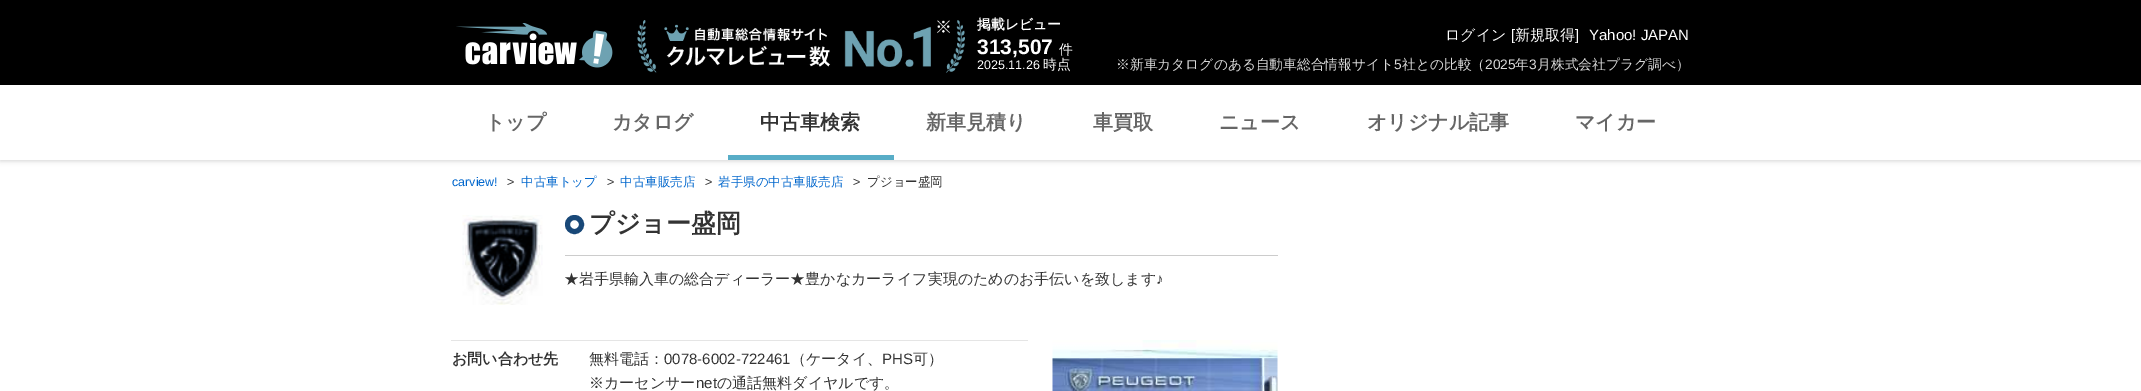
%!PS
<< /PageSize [2141 391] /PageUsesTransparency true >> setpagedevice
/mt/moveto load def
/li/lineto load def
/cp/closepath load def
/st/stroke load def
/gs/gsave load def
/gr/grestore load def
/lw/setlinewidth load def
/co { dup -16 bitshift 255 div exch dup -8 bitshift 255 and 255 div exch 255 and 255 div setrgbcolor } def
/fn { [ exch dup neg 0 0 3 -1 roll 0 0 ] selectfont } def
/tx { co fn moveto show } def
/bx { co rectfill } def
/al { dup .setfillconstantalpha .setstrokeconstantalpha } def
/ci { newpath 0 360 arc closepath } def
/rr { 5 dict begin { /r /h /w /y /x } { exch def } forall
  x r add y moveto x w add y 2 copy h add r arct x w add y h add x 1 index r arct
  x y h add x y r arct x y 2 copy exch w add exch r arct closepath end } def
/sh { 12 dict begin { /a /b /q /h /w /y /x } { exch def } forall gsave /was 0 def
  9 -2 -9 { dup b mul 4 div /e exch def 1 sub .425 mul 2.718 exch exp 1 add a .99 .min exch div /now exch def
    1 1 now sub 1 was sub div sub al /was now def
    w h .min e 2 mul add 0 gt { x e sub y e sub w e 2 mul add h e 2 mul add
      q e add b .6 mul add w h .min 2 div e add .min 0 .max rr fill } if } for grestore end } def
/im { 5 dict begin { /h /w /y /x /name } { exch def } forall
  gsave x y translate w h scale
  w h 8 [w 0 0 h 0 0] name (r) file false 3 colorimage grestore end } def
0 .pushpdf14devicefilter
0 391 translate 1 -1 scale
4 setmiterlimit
0 0 2141 391 16#FFFFFF bx
0 0 2141 85 16#000000 bx
(media/1.raw) 456 23 157 45 im
(media/2.raw) 637 20 328 53 im
gs
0 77 mt 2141 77 li 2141 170 li 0 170 li cp 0 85 mt 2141 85 li 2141 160 li 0 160 li cp eoclip newpath
0 86 2141 75 0 2.5 .16 sh
gr
728 155 166 5 16#58ADC7 bx
(media/3.raw) 462 215 81 90 im
565 255 713 1 16#CCCCCC bx
16#194878 co
5 lw
574.5 224.5 7 ci st
451 340 577 1 16#E5E5E5 bx
(media/4.raw) 1052 340 226 51 im
(掲載レビュー) 977 29 /WenQuanYiZenHei-Bold 13.75 16#FFFFFF tx
(313,507) 977 54 /LiberationSans-Bold 21 16#FFFFFF tx
(件) 1059 54 /WenQuanYiZenHei-Medium 13.75 16#FFFFFF tx
(2025.11.26) 977 69 /LiberationSans-Regular 12.5 16#FFFFFF tx
(時点) 1043 69 /WenQuanYiZenHei-Medium 13.75 16#FFFFFF tx
(ログイン) 1445 40 /WenQuanYiZenHei-Medium 15 16#FFFFFF tx
([) 1511 40 /LiberationSans-Regular 15 16#FFFFFF tx
(新規取得) 1515 40 /WenQuanYiZenHei-Medium 15 16#FFFFFF tx
(]) 1575 40 /LiberationSans-Regular 15 16#FFFFFF tx
(Yahoo! JAPAN) 1589 40 /LiberationSans-Regular 15 16#FFFFFF tx
(※新車カタログのある自動車総合情報サイト) 1116 69 /WenQuanYiZenHei-Medium 13.75 16#D9D9D9 tx
(5) 1394 69 /LiberationSans-Regular 13.75 16#D9D9D9 tx
(社との比較（) 1402 69 /WenQuanYiZenHei-Medium 13.75 16#D9D9D9 tx
(2025) 1485 69 /LiberationSans-Regular 13.75 16#D9D9D9 tx
(年) 1515 69 /WenQuanYiZenHei-Medium 13.75 16#D9D9D9 tx
(3) 1529 69 /LiberationSans-Regular 13.75 16#D9D9D9 tx
(月株式会社プラグ調べ）) 1537 69 /WenQuanYiZenHei-Medium 13.75 16#D9D9D9 tx
(トップ) 485 129 /WenQuanYiZenHei-Bold 20 16#666666 tx
(カタログ) 612 129 /WenQuanYiZenHei-Bold 20 16#666666 tx
(中古車検索) 760 129 /WenQuanYiZenHei-Bold 20 16#333333 tx
(新車見積り) 926 129 /WenQuanYiZenHei-Bold 20 16#666666 tx
(車買取) 1093 129 /WenQuanYiZenHei-Bold 20 16#666666 tx
(ニュース) 1219 129 /WenQuanYiZenHei-Bold 20 16#666666 tx
(オリジナル記事) 1367 129 /WenQuanYiZenHei-Bold 20 16#666666 tx
(マイカー) 1575 129 /WenQuanYiZenHei-Bold 20 16#666666 tx
(carview!) 452 186 /LiberationSans-Regular 12.5 16#0066CC tx
(>) 507 186 /LiberationSans-Regular 12.5 16#333333 tx
(中古車トップ) 521 186 /WenQuanYiZenHei-Medium 12.5 16#0066CC tx
(>) 607 186 /LiberationSans-Regular 12.5 16#333333 tx
(中古車販売店) 620 186 /WenQuanYiZenHei-Medium 12.5 16#0066CC tx
(>) 705 186 /LiberationSans-Regular 12.5 16#333333 tx
(岩手県の中古車販売店) 718 186 /WenQuanYiZenHei-Medium 12.5 16#0066CC tx
(>) 853 186 /LiberationSans-Regular 12.5 16#333333 tx
(プジョー盛岡) 867 186 /WenQuanYiZenHei-Medium 12.5 16#333333 tx
(プジョー盛岡) 589 232 /WenQuanYiZenHei-Bold 25 16#333333 tx
(★岩手県輸入車の総合ディーラー★豊かなカーライフ実現のためのお手伝いを致します) 564 284 /WenQuanYiZenHei-Medium 15 16#333333 tx
(♪) 1156 284 /LiberationSans-Regular 15 16#333333 tx
(お問い合わせ先) 452 364 /WenQuanYiZenHei-Bold 15 16#333333 tx
(無料電話：) 589 364 /WenQuanYiZenHei-Medium 15 16#333333 tx
(0078-6002-722461) 664 364 /LiberationSans-Regular 15 16#333333 tx
(（ケータイ、) 791 364 /WenQuanYiZenHei-Medium 15 16#333333 tx
(PHS) 882 364 /LiberationSans-Regular 15 16#333333 tx
(可）) 913 364 /WenQuanYiZenHei-Medium 15 16#333333 tx
(※カーセンサー) 589 388 /WenQuanYiZenHei-Medium 15 16#333333 tx
(net) 696 388 /LiberationSans-Regular 15 16#333333 tx
(の通話無料ダイヤルです。) 717 388 /WenQuanYiZenHei-Medium 15 16#333333 tx
.poppdf14devicefilter showpage
